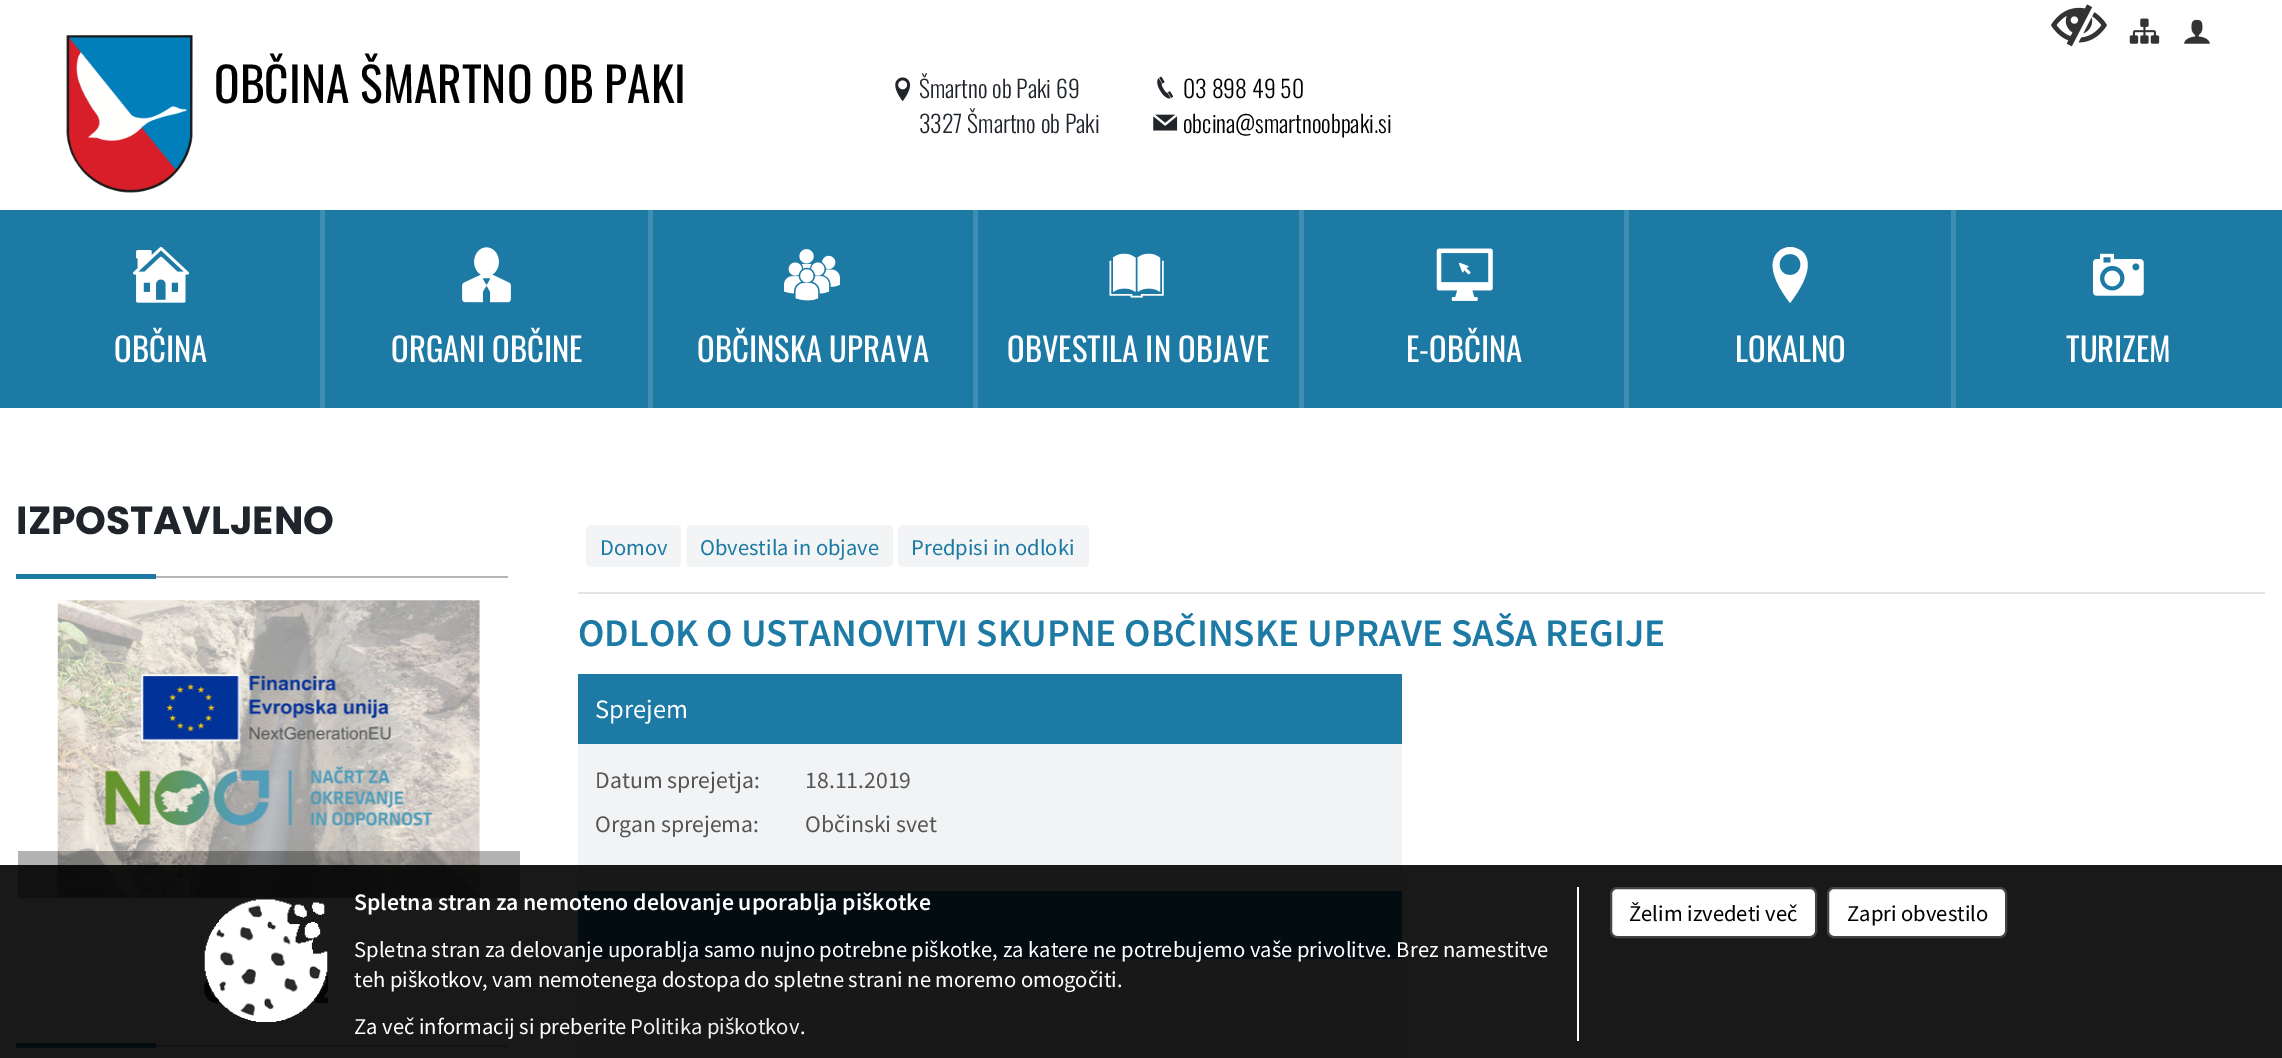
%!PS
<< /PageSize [2282 1058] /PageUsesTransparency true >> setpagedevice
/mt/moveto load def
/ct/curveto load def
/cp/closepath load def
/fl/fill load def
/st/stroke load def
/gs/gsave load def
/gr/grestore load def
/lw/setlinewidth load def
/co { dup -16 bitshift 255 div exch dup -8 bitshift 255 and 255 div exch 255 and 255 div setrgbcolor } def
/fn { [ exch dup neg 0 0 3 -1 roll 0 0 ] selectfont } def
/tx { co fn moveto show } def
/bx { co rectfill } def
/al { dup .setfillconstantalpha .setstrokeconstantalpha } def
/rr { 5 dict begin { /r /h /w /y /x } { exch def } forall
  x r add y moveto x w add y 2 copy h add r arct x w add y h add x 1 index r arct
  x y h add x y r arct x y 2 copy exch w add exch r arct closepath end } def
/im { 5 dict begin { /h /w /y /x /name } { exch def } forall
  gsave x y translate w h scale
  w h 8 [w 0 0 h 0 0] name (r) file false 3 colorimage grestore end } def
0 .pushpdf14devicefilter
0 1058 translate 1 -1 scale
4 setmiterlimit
0 0 2282 1058 16#FFFFFF bx
(media/1.raw) 2051 4 56 43 im
(media/2.raw) 2129 18 31 26 im
(media/3.raw) 2184 19 26 25 im
(media/4.raw) 66 35 127 158 im
(media/5.raw) 895 77 16 25 im
(media/6.raw) 1157 76 17 23 im
(media/7.raw) 1153 114 25 17 im
0 210 648 198 16#1C7AA5 bx
320 210 5 198 16#3E8EB3 bx
(media/8.raw) 133 246 56 57 im
648 210 5 198 16#3E8EB3 bx
(media/9.raw) 462 247 49 56 im
653 210 320 198 16#1C7AA5 bx
973 210 5 198 16#3E8EB3 bx
(media/10.raw) 784 249 56 52 im
978 210 321 198 16#1C7AA5 bx
1299 210 5 198 16#3E8EB3 bx
(media/11.raw) 1109 253 55 45 im
1304 210 320 198 16#1C7AA5 bx
1624 210 5 198 16#3E8EB3 bx
(media/12.raw) 1436 248 57 53 im
1629 210 653 198 16#1C7AA5 bx
1951 210 5 198 16#3E8EB3 bx
16#FFFFFF co
1790 247 mt 1786 247 1781 249 1778 252 ct 1764 266 1781 291 1790 303 ct 1799 291 1816 266 1803 252 ct 1799 249 1795 247 1790 247 ct cp 1790 275 mt 1776 275 1776 254 1790 254 ct 1804 254 1804 275 1790 275 ct cp fl
(media/13.raw) 2093 253 51 43 im
156 576 352 2 16#B5B5B5 bx
16 574 140 5 16#1C7AA5 bx
(media/14.raw) 57 600 423 298 im
0.3 al
18 851 502 47 16#000000 bx
1 al
16 1043 140 5 16#1C7AA5 bx
156 1045 352 2 16#B5B5B5 bx
578 592 1687 2 16#E3E4E5 bx
16#F3F4F5 co
586 525 95 42 5 rr fl
686 525 207 42 5 rr fl
898 525 191 42 5 rr fl
578 744 824 314 16#F2F3F5 bx
578 674 824 70 16#1C7AA5 bx
578 891 824 68 16#1C7AA5 bx
0.9 al
0 865 2282 193 16#000000 bx
1 al
(media/15.raw) 204 899 124 123 im
1577 887 2 154 16#FFFFFF bx
1611 888 205 49 6 rr gs fl gr
16#444444 co
2 lw
st
16#FFFFFF co
1828 888 178 49 6 rr gs fl gr
16#444444 co
st
(OBČINA ŠMARTNO OB PAKI) 214 103 /Oswald-Regular 47.5 16#000000 tx
(Šmartno ob Paki 69) 919 98 /Oswald-Light 23.75 16#1F252B tx
(3327 Šmartno ob Paki) 919 133 /Oswald-Light 23.75 16#1F252B tx
(03 898 49 50) 1183 98 /Oswald-Light 23.75 16#000000 tx
(obcina@smartnoobpaki.si) 1183 133 /Oswald-Light 23.75 16#000000 tx
(OBČINA) 114 362 /Oswald-Regular 32.75 16#FFFFFF tx
(ORGANI OBČINE) 391 362 /Oswald-Regular 32.75 16#FFFFFF tx
(OBČINSKA UPRAVA) 697 362 /Oswald-Regular 32.75 16#FFFFFF tx
(OBVESTILA IN OBJAVE) 1007 362 /Oswald-Regular 32.75 16#FFFFFF tx
(E-OBČINA) 1406 362 /Oswald-Regular 32.75 16#FFFFFF tx
(LOKALNO) 1735 362 /Oswald-Regular 32.75 16#FFFFFF tx
(TURIZEM) 2066 362 /Oswald-Regular 32.75 16#FFFFFF tx
(IZPOSTAVLJENO) 16 534 /Poppins-Bold 39.2 16#1F252B tx
(Domov) 600 555 /SourceSansPro-Regular 22.5 16#1C7AA5 tx
(Obvestila in objave) 700 555 /SourceSansPro-Regular 22.5 16#1C7AA5 tx
(Predpisi in odloki) 911 555 /SourceSansPro-Regular 22.5 16#1C7AA5 tx
(ODLOK O USTANOVITVI SKUPNE OBČINSKE UPRAVE SAŠA REGIJE) 578 646 /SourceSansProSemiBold-SemiBold 39.2 16#1C7AA5 tx
(Sprejem) 595 718 /SourceSansPro-Regular 26.5 16#FFFFFF tx
(Datum sprejetja:) 595 788 /SourceSansPro-Regular 23.75 16#555555 tx
(18.11.2019) 805 788 /SourceSansPro-Regular 23.75 16#555555 tx
(Organ sprejema:) 595 832 /SourceSansPro-Regular 23.75 16#555555 tx
(Občinski svet) 805 832 /SourceSansPro-Regular 23.75 16#555555 tx
(Spletna stran za nemoteno delovanje uporablja piškotke) 354 910 /SourceSansProSemiBold-SemiBold 23.75 16#FFFFFF tx
(Spletna stran za delovanje uporablja samo nujno potrebne piškotke, za katere ne potrebujemo vaše privolitve. Brez namestitve) 354 957 /SourceSansPro-Regular 22.6 16#FFFFFF tx
(teh piškotkov, vam nemotenega dostopa do spletne strani ne moremo omogočiti.) 354 987 /SourceSansPro-Regular 22.6 16#FFFFFF tx
(Za več informacij si preberite) 354 1034 /SourceSansPro-Regular 22.6 16#FFFFFF tx
(Politika piškotkov) 630 1034 /SourceSansPro-Regular 22.6 16#EEEEEE tx
(.) 800 1034 /SourceSansPro-Regular 22.6 16#FFFFFF tx
(Želim izvedeti več) 1629 921 /SourceSansPro-Regular 22.6 16#000000 tx
(Zapri obvestilo) 1847 921 /SourceSansPro-Regular 22.6 16#000000 tx
.poppdf14devicefilter showpage
